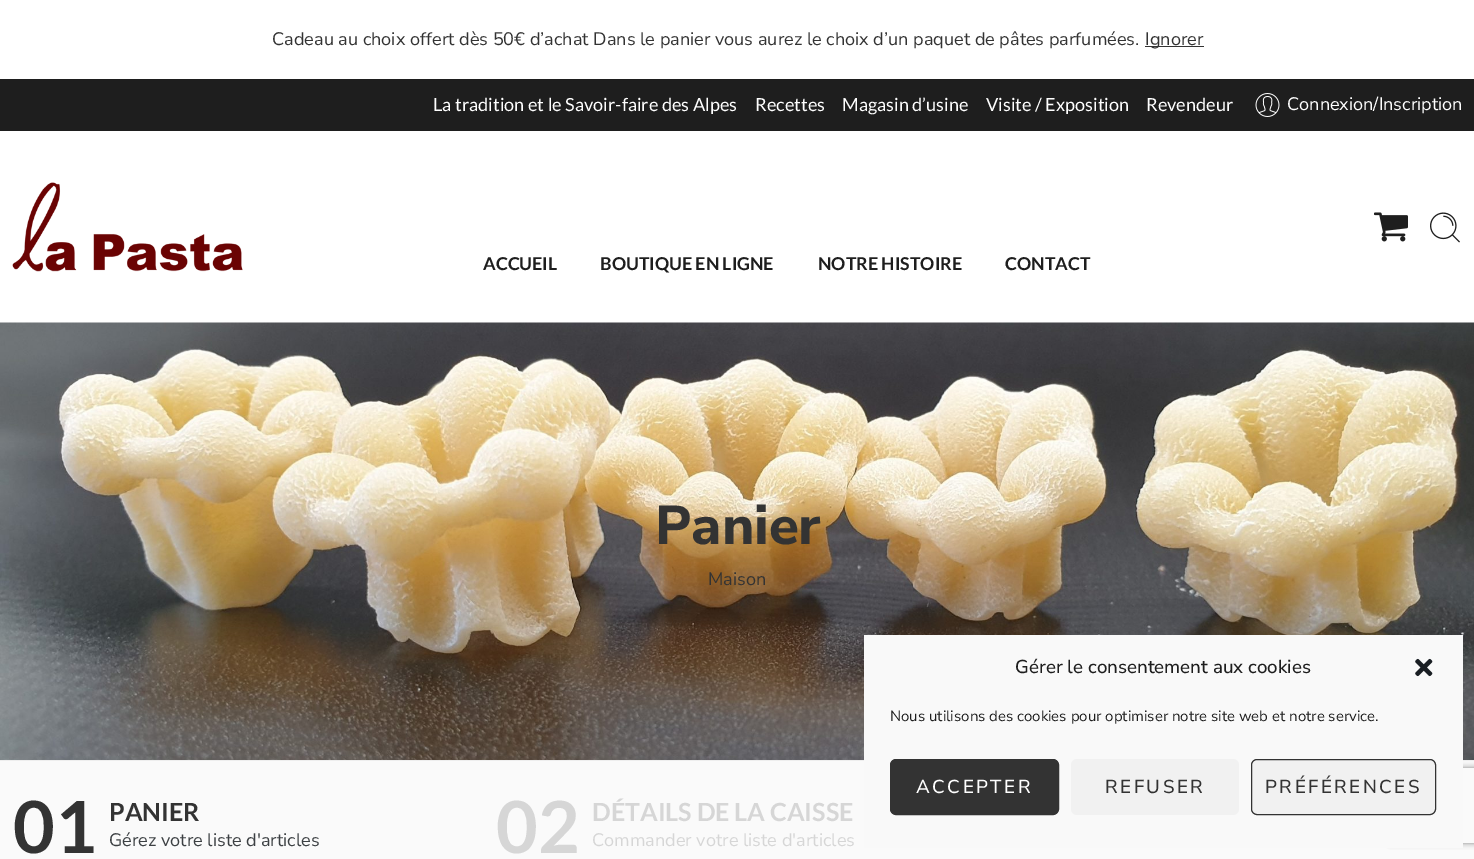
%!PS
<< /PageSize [1474 859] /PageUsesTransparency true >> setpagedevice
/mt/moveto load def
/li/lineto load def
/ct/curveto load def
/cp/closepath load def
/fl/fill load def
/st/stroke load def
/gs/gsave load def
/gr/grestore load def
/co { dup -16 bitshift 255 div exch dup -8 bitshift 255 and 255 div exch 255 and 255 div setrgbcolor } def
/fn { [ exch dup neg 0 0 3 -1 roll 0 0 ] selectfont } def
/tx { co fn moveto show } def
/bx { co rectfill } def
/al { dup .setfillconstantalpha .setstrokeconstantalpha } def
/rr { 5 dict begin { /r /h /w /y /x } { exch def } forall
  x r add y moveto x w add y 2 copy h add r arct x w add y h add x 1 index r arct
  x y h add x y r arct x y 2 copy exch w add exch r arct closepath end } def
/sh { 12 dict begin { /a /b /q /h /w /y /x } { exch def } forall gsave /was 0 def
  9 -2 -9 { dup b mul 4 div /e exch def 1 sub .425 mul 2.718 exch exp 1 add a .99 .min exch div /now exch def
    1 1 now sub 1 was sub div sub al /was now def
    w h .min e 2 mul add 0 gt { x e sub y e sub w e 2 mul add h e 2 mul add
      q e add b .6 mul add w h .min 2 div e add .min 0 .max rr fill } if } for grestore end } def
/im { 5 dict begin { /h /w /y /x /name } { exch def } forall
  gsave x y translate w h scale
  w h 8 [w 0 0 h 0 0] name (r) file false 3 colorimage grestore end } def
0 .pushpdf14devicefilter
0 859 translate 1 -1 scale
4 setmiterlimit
0 0 1474 859 16#FFFFFF bx
1145 46 59 1 16#333333 bx
0 79 1474 52 16#1E1E1E bx
(media/1.raw) 1255 93 25 24 im
(media/2.raw) 12 182 231 90 im
(media/3.raw) 1374 212 34 30 im
(media/4.raw) 1430 212 30 31 im
(media/5.raw) 0 322 1474 438 im
0 761 1474 98 16#FAFAFA bx
0 760 1474 1 16#EEEEEE bx
gs
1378 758 mt 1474 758 li 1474 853 li 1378 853 li cp 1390.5 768 mt 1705.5 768 li 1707 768 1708 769 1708 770.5 ct 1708 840.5 li 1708 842 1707 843 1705.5 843 ct 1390.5 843 li 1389 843 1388 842 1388 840.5 ct 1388 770.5 li 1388 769 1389 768 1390.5 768 ct cp eoclip newpath
16#808080 co
1388 768 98 75 2.5 3 1 sh
gr
864 635 599 213 16#F9F9F9 bx
(media/6.raw) 1415 658 18 19 im
16#333333 co
890.5 759.5 168 55 5.5 rr gs fl gr
st
16#F1F1F1 co
1071 759 168 56 6 rr fl
1251.5 759.5 184 55 5.5 rr gs fl gr
16#333333 co
st
(Cadeau au choix offert dès 50€ d’achat Dans le panier vous aurez le choix d’un paquet de pâtes parfumées.) 272 45 /NunitoSans-Regular 18.1 16#333333 tx
(Ignorer) 1145 45 /NunitoSans-Regular 18.1 16#333333 tx
(La tradition et le Savoir-faire des Alpes) 433 111 /Lato-Regular 18.1 16#FFFFFF tx
(Recettes) 755 111 /Lato-Regular 18.1 16#FFFFFF tx
(Magasin d’usine) 842 111 /Lato-Regular 18.1 16#FFFFFF tx
(Visite / Exposition) 986 111 /Lato-Regular 18.1 16#FFFFFF tx
(Revendeur) 1146 111 /Lato-Regular 18.1 16#FFFFFF tx
(Connexion/Inscription) 1287 110 /NunitoSans-Regular 18.1 16#FFFFFF tx
(ACCUEIL) 483 270 /Lato-Bold 17.75 16#1E1E1E tx
(BOUTIQUE EN LIGNE) 600 270 /Lato-Bold 17.75 16#1E1E1E tx
(NOTRE HISTOIRE) 818 270 /Lato-Bold 17.75 16#1E1E1E tx
(CONTACT) 1005 270 /Lato-Bold 17.75 16#1E1E1E tx
(Panier) 655 544 /NunitoSans-ExtraBold 54.5 16#333333 tx
(Maison) 708 585 /NunitoSans-Regular 18.1 16#333333 tx
(01) 13 853 /Lato-Bold 72 16#333333 tx
(PANIER) 109 821 /Lato-Bold 25 16#333333 tx
(Gérez votre liste d'articles) 109 846 /NunitoSans-Regular 18.1 16#3C4043 tx
(02) 496 853 /Lato-Bold 72 16#D6D6D6 tx
(DÉTAILS DE LA CAISSE) 592 821 /Lato-Bold 25 16#D6D6D6 tx
(Commander votre liste d'articles) 592 846 /NunitoSans-Regular 18.1 16#D6D6D6 tx
(Gérer le consentement aux cookies) 1015 673 /NunitoSans-Medium 18.75 16#1E1E1E tx
(Nous utilisons des cookies pour optimiser notre site web et notre service.) 890 721 /NunitoSans-Regular 15 16#1E1E1E tx
/NunitoSans-Medium 18.75 fn
16#FFFFFF co
916 793 mt 2.5 0 (ACCEPTER) ashow
16#333333 co
1105 793 mt 2.5 0 (REFUSER) ashow
1265 793 mt 2.5 0 (PRÉFÉRENCES) ashow
.poppdf14devicefilter showpage
